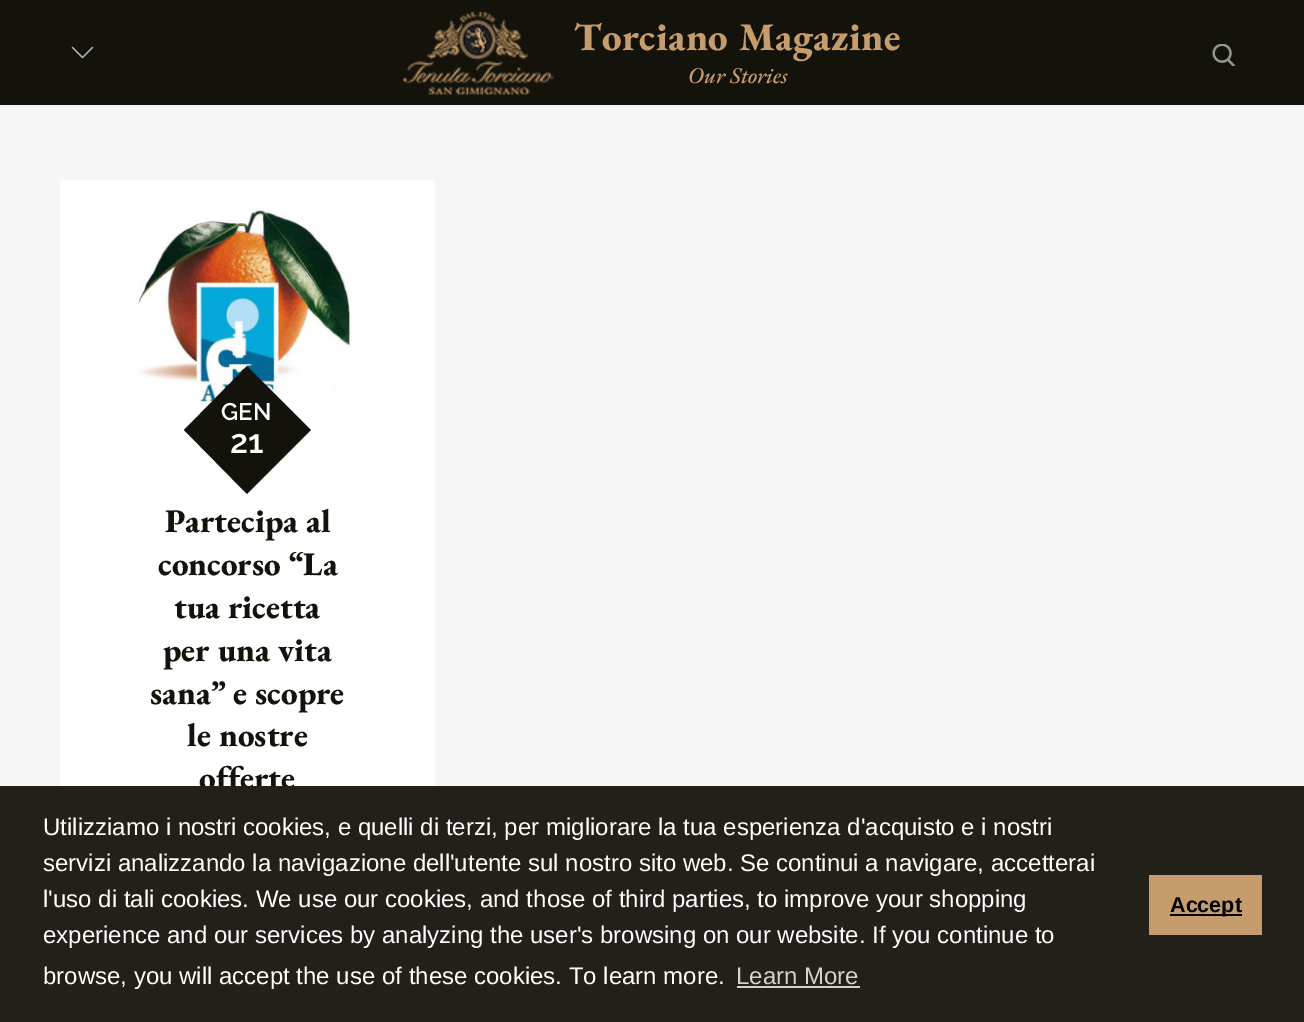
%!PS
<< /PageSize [1304 1022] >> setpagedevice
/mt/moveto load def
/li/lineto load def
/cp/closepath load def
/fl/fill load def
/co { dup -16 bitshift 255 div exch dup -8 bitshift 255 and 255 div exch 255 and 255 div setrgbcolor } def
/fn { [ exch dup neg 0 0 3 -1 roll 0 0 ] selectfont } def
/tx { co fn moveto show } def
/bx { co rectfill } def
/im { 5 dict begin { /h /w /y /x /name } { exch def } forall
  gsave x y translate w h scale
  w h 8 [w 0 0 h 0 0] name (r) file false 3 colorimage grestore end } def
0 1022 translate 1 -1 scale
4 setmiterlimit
0 0 1304 1022 16#F6F6F6 bx
0 0 1304 105 16#14130B bx
(media/1.raw) 71 46 23 13 im
(media/2.raw) 403 12 151 83 im
(media/3.raw) 1212 44 23 22 im
(media/4.raw) 60 180 375 251 im
60 431 375 355 16#FFFFFF bx
16#14130B co
184 430 mt 247 366 li 311 430 li 247 494 li cp fl
/EBGaramond-ExtraBold 39 fn
16#C69C6D co
574 50 mt .4 0 (Torciano Magazine) ashow
(Our Stories) 688 83 /EBGaramond-MediumItalic 22.5 16#C69C6D tx
(GEN) 221 420 /Raleway-SemiBold 24 16#FFFFFF tx
(21) 230 453 /Raleway-SemiBold 33 16#FFFFFF tx
(Partecipa al) 165 532 /EBGaramond-ExtraBold 33 16#14130B tx
(concorso “La) 158 575 /EBGaramond-ExtraBold 33 16#14130B tx
(tua ricetta) 174 618 /EBGaramond-ExtraBold 33 16#14130B tx
(per una vita) 163 661 /EBGaramond-ExtraBold 33 16#14130B tx
(sana” e scopre) 150 704 /EBGaramond-ExtraBold 33 16#14130B tx
(le nostre) 187 746 /EBGaramond-ExtraBold 33 16#14130B tx
(offerte) 199 789 /EBGaramond-ExtraBold 33 16#14130B tx
0 786 1304 236 16#222019 bx
(Utilizziamo i nostri cookies, e quelli di terzi, per migliorare la tua esperienza d'acquisto e i nostri) 43 835 /LiberationSans-Regular 24 16#FFFFFF tx
(servizi analizzando la navigazione dell'utente sul nostro sito web. Se continui a navigare, accetterai) 43 871 /LiberationSans-Regular 24 16#FFFFFF tx
(l'uso di tali cookies. We use our cookies, and those of third parties, to improve your shopping) 43 907 /LiberationSans-Regular 24 16#FFFFFF tx
(experience and our services by analyzing the user's browsing on our website. If you continue to) 43 943 /LiberationSans-Regular 24 16#FFFFFF tx
(browse, you will accept the use of these cookies. To learn more.) 43 984 /LiberationSans-Regular 24 16#FFFFFF tx
(Learn More) 736 984 /LiberationSans-Regular 24 16#D3D2D1 tx
737 986 123 2 16#D3D2D1 bx
1149 875 113 60 16#C69C6D bx
1170 914 72 2 16#000000 bx
(Accept) 1170 912 /LiberationSans-Bold 21.5 16#000000 tx
showpage
